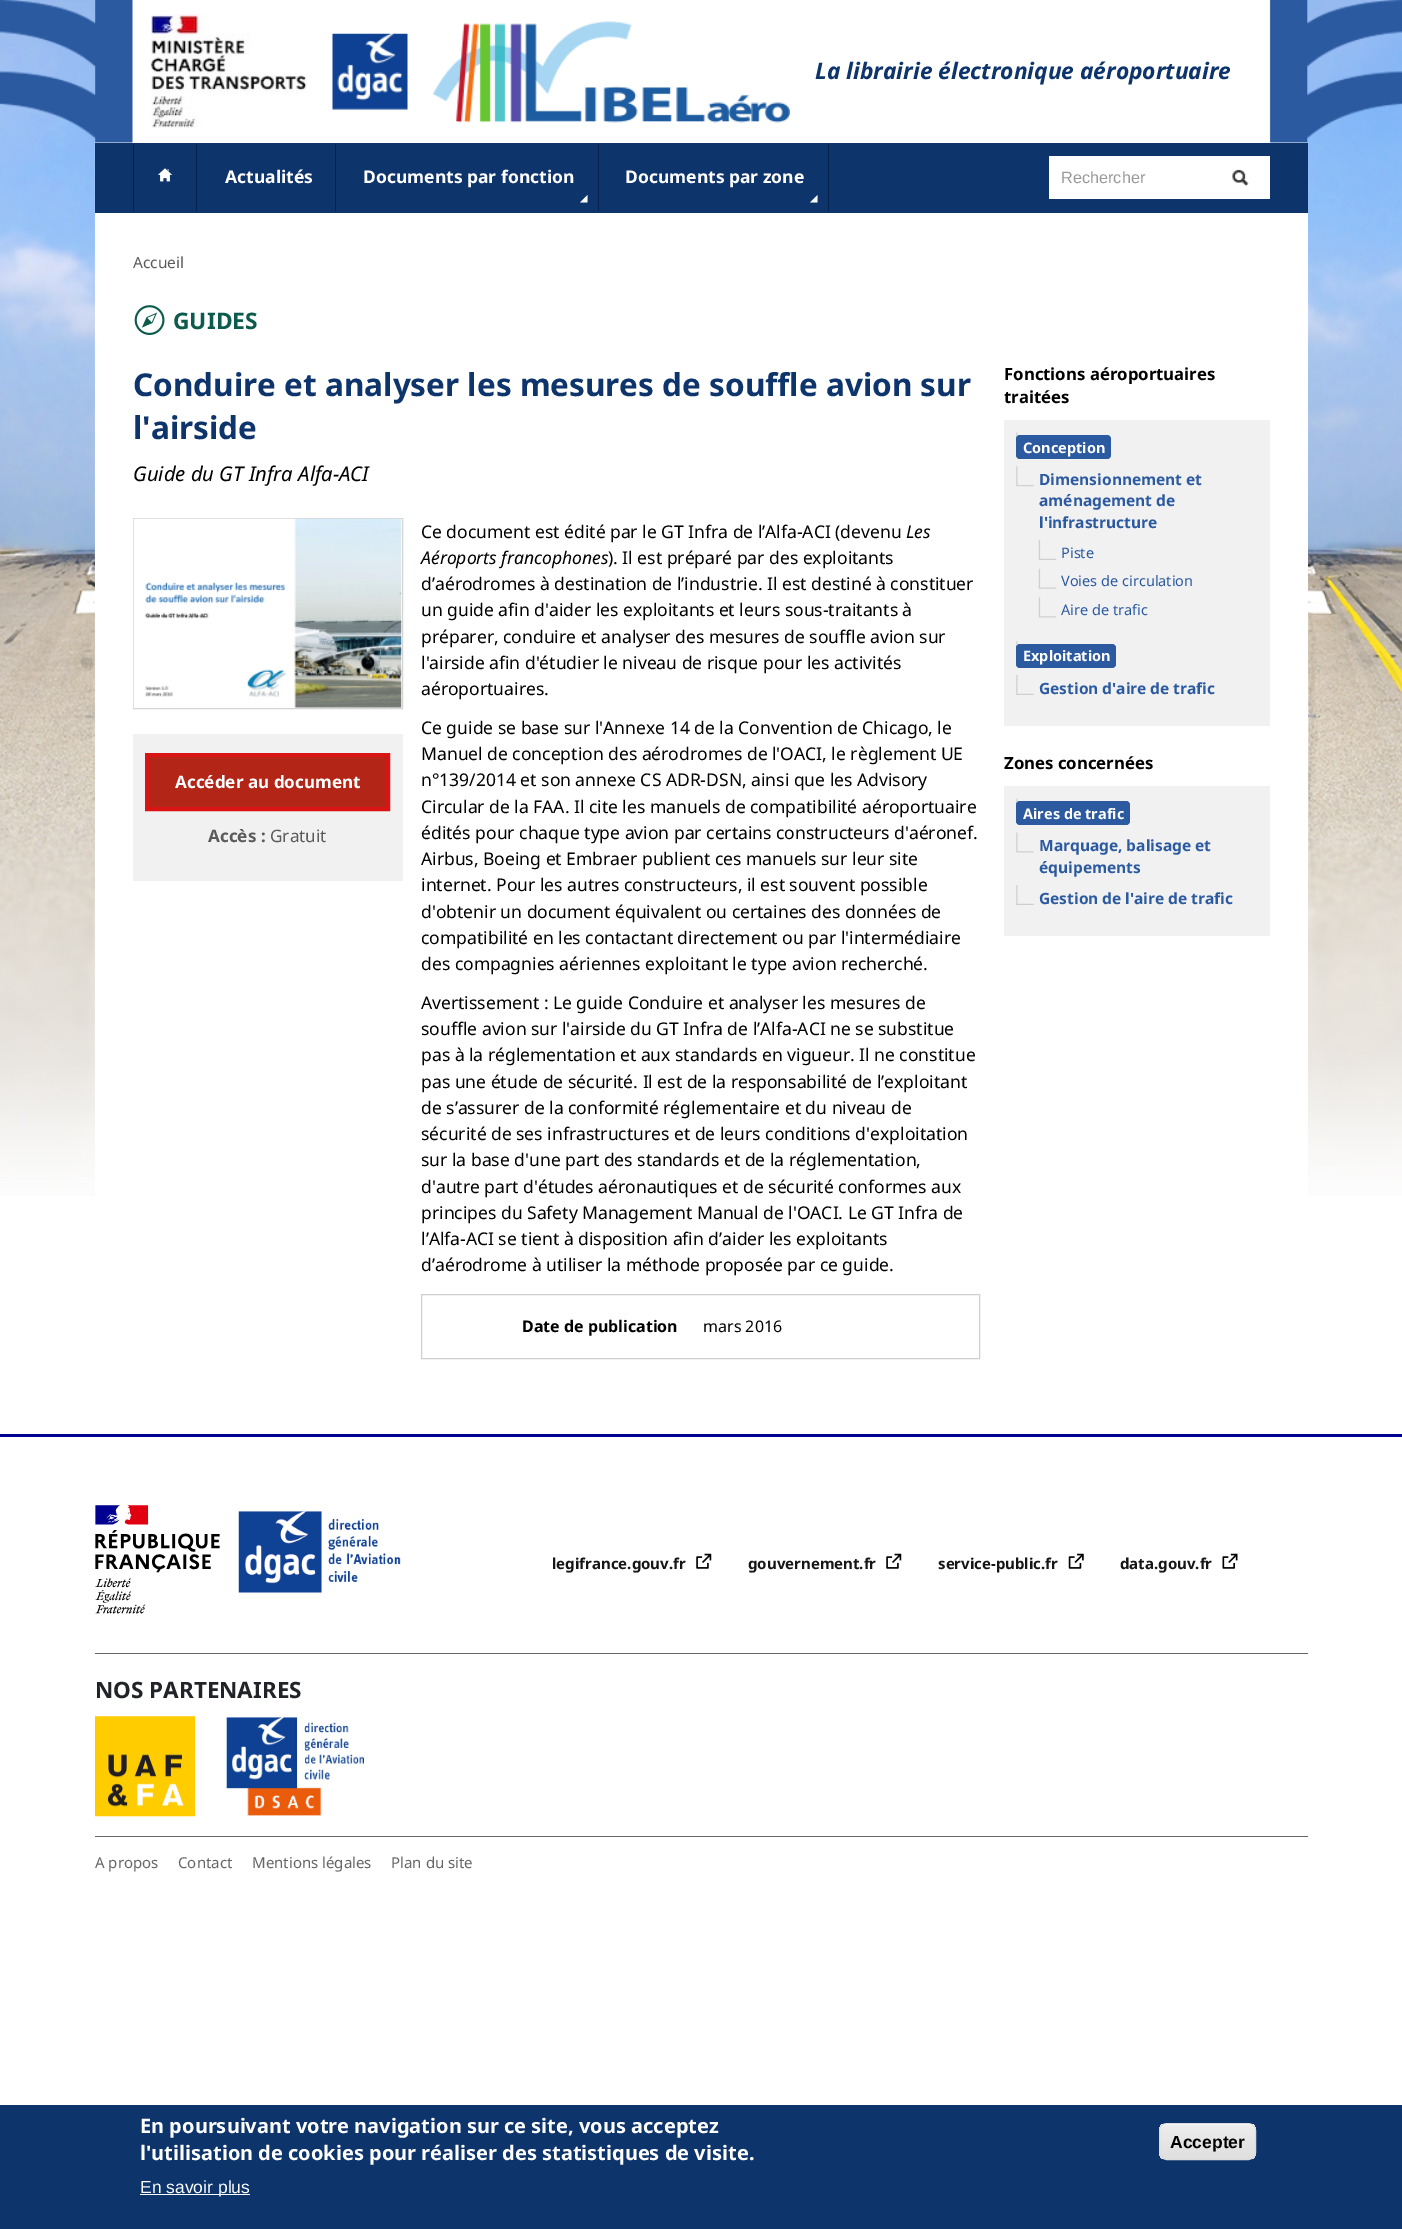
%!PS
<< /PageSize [1402 2229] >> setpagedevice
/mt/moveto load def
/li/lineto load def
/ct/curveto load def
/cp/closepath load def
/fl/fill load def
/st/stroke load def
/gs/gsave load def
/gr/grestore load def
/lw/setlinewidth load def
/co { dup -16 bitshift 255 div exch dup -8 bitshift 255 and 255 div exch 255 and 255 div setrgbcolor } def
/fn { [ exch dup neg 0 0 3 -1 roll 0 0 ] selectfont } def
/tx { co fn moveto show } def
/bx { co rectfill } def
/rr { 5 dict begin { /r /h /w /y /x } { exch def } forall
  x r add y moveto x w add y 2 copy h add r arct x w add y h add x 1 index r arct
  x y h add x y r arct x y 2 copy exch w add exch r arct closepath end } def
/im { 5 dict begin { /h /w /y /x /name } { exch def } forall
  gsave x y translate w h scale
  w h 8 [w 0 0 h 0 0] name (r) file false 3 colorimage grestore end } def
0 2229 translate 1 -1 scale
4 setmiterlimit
0 0 1402 2229 16#FFFFFF bx
(media/1.raw) 0 0 1402 1196 im
(media/2.raw) 0 0 1402 143 im
(media/3.raw) 151 14 156 114 im
(media/4.raw) 332 33 76 77 im
(media/5.raw) 432 21 358 102 im
95 213 1213 959 16#FFFFFF bx
95 143 1213 70 16#0E346C bx
196 144 1 67 16#05224D bx
133 144 1 67 16#05224D bx
(media/6.raw) 158 168 15 14 im
335 144 1 67 16#05224D bx
598 144 1 67 16#05224D bx
16#FFFFFF co
580 202.5 mt 587.5 202.5 li 587.5 195 li cp fl
828 144 1 67 16#05224D bx
16#FFFFFF co
810 202.5 mt 817.5 202.5 li 817.5 195 li cp fl
1049 156 221 43 16#FFFFFF bx
(media/7.raw) 1232 169 17 18 im
(media/8.raw) 134 305 31 30 im
16#D5D5D5 co
133.5 518.5 269 190 rectstroke
(media/9.raw) 133 518 269 190 im
133 734 270 147 16#F1F1F1 bx
16#B32617 co
147 755 mt 388 755 li 388 809 li 147 809 li cp gs fl gr
16#D91414 co
4 lw
st
16#D0D0D0 co
1 lw
421.5 1294.5 558 64 rectstroke
1004 420 266 306 16#F1F1F1 bx
(media/10.raw) 1016 432 2 7 im
16#2C5AA0 co
1016 435 95 24 4 rr fl
(media/11.raw) 1016 466 18 21 im
(media/12.raw) 1038 540 19 20 im
(media/13.raw) 1038 568 19 21 im
(media/14.raw) 1038 597 19 21 im
(media/15.raw) 1016 641 2 7 im
1016 644 100 24 4 rr fl
(media/16.raw) 1016 675 18 20 im
1004 786 266 150 16#F1F1F1 bx
(media/17.raw) 1016 798 2 7 im
16#2C5AA0 co
1016 801 114 24 4 rr fl
(media/18.raw) 1016 832 18 21 im
(media/16.raw) 1016 885 18 20 im
0 1434 1402 3 16#000091 bx
(media/19.raw) 95 1505 125 109 im
(media/20.raw) 238 1511 163 82 im
(media/21.raw) 696 1553 16 16 im
(media/21.raw) 886 1553 16 16 im
(media/22.raw) 1068 1553 16 16 im
(media/23.raw) 1222 1553 16 16 im
95 1653 1213 1 16#666666 bx
(media/24.raw) 95 1716 100 101 im
(media/25.raw) 225 1716 140 100 im
95 1836 1213 1 16#666666 bx
0 2105 1402 124 16#0E346C bx
140 2194 110 1 16#FFFFFF bx
gs
1159 2123 97 37 8 rr clip newpath
gs 1159 2124 mt 1256 2124 li 1256 2159 li 1159 2159 li cp clip newpath
<< /ShadingType 2 /ColorSpace /DeviceRGB /Coords [1208 2124 1208 2159] /Extend [true true] /Function << /FunctionType 3 /Domain [0 1] /Functions [<< /FunctionType 2 /Domain [0 1] /C0 [.929 .929 .929] /C1 [.929 .929 .929] /N 1 >> << /FunctionType 2 /Domain [0 1] /C0 [.929 .929 .929] /C1 [.875 .875 .875] /N 1 >>] /Bounds [.05] /Encode [0 1 0 1] >> >> shfill gr
gr
1166 2125 mt 1249 2125 li 1252 2125 1255 2128 1255 2131 ct 1255 2121 1242 2124 1235 2124 ct 1180 2124 li 1173 2124 1160 2121 1160 2131 ct 1160 2128 1163 2125 1166 2125 ct cp fl
16#DCDCDC co
1159.5 2123.5 96 36 7.5 rr st
(La librairie électronique aéroportuaire) 815 79 /NotoSans-BoldItalic 22.75 16#0E346C tx
(Actualités) 225 183 /NotoSans-Bold 17.5 16#FFFFFF tx
(Documents par fonction) 363 183 /NotoSans-Bold 17.5 16#FFFFFF tx
(Documents par zone) 625 183 /NotoSans-Bold 17.5 16#FFFFFF tx
(Rechercher) 1061 183 /LiberationSans-Regular 16.25 16#999999 tx
(Accueil) 133 268 /NotoSans-Regular 15.5 16#5B5B5B tx
(GUIDES) 173 329 /NotoSans-Bold 22.75 16#0D5B4C tx
(Conduire et analyser les mesures de souffle avion sur) 133 396 /NotoSans-Bold 31.5 16#0E346C tx
(l'airside) 133 439 /NotoSans-Bold 31.5 16#0E346C tx
(Guide du GT Infra Alfa-ACI) 133 481 /NotoSans-Italic 20.25 16#000000 tx
(Accéder au document) 175 788 /NotoSans-Bold 17.1 16#FFFFFF tx
(Accès :) 208 842 /NotoSans-Bold 17.1 16#5B5B5B tx
(Gratuit) 270 842 /NotoSans-Regular 17.1 16#5B5B5B tx
(Ce document est édité par le GT Infra de l’Alfa-ACI \(devenu) 421 538 /NotoSans-Regular 17.5 16#000000 tx
(Les) 906 538 /NotoSans-Italic 17.5 16#000000 tx
(Aéroports francophones) 421 564 /NotoSans-Italic 17.5 16#000000 tx
(\). Il est préparé par des exploitants) 608 564 /NotoSans-Regular 17.5 16#000000 tx
(d’aérodromes à destination de l’industrie. Il est destiné à constituer) 421 590 /NotoSans-Regular 17.5 16#000000 tx
(un guide afin d'aider les exploitants et leurs sous-traitants à) 421 616 /NotoSans-Regular 17.5 16#000000 tx
(préparer, conduire et analyser des mesures de souffle avion sur) 421 643 /NotoSans-Regular 17.5 16#000000 tx
(l'airside afin d'étudier le niveau de risque pour les activités) 421 669 /NotoSans-Regular 17.5 16#000000 tx
(aéroportuaires.) 421 695 /NotoSans-Regular 17.5 16#000000 tx
(Ce guide se base sur l'Annexe 14 de la Convention de Chicago, le) 421 734 /NotoSans-Regular 17.5 16#000000 tx
(Manuel de conception des aérodromes de l'OACI, le règlement UE) 421 760 /NotoSans-Regular 17.5 16#000000 tx
(n°139/2014 et son annexe CS ADR-DSN, ainsi que les Advisory) 421 786 /NotoSans-Regular 17.5 16#000000 tx
(Circular de la FAA. Il cite les manuels de compatibilité aéroportuaire) 421 813 /NotoSans-Regular 17.5 16#000000 tx
(édités pour chaque type avion par certains constructeurs d'aéronef.) 421 839 /NotoSans-Regular 17.5 16#000000 tx
(Airbus, Boeing et Embraer publient ces manuels sur leur site) 421 865 /NotoSans-Regular 17.5 16#000000 tx
(internet. Pour les autres constructeurs, il est souvent possible) 421 891 /NotoSans-Regular 17.5 16#000000 tx
(d'obtenir un document équivalent ou certaines des données de) 421 918 /NotoSans-Regular 17.5 16#000000 tx
(compatibilité en les contactant directement ou par l'intermédiaire) 421 944 /NotoSans-Regular 17.5 16#000000 tx
(des compagnies aériennes exploitant le type avion recherché.) 421 970 /NotoSans-Regular 17.5 16#000000 tx
(Avertissement : Le guide Conduire et analyser les mesures de) 421 1009 /NotoSans-Regular 17.5 16#000000 tx
(souffle avion sur l'airside du GT Infra de l’Alfa-ACI ne se substitue) 421 1035 /NotoSans-Regular 17.5 16#000000 tx
(pas à la réglementation et aux standards en vigueur. Il ne constitue) 421 1061 /NotoSans-Regular 17.5 16#000000 tx
(pas une étude de sécurité. Il est de la responsabilité de l’exploitant) 421 1088 /NotoSans-Regular 17.5 16#000000 tx
(de s’assurer de la conformité réglementaire et du niveau de) 421 1114 /NotoSans-Regular 17.5 16#000000 tx
(sécurité de ses infrastructures et de leurs conditions d'exploitation) 421 1140 /NotoSans-Regular 17.5 16#000000 tx
(sur la base d'une part des standards et de la réglementation,) 421 1166 /NotoSans-Regular 17.5 16#000000 tx
(d'autre part d'études aéronautiques et de sécurité conformes aux) 421 1193 /NotoSans-Regular 17.5 16#000000 tx
(principes du Safety Management Manual de l'OACI. Le GT Infra de) 421 1219 /NotoSans-Regular 17.5 16#000000 tx
(l’Alfa-ACI se tient à disposition afin d’aider les exploitants) 421 1245 /NotoSans-Regular 17.5 16#000000 tx
(d’aérodrome à utiliser la méthode proposée par ce guide.) 421 1271 /NotoSans-Regular 17.5 16#000000 tx
(Date de publication) 522 1332 /NotoSans-Bold 16 16#000000 tx
(mars 2016) 703 1332 /NotoSans-Regular 16 16#000000 tx
(Fonctions aéroportuaires) 1004 380 /NotoSans-Bold 16.75 16#000000 tx
(traitées) 1004 403 /NotoSans-Bold 16.75 16#000000 tx
(Conception) 1023 453 /NotoSans-Bold 14.5 16#FFFFFF tx
(Dimensionnement et) 1039 485 /NotoSans-Bold 15.5 16#2C5AA0 tx
(aménagement de) 1039 506 /NotoSans-Bold 15.5 16#2C5AA0 tx
(l'infrastructure) 1039 528 /NotoSans-Bold 15.5 16#2C5AA0 tx
(Piste) 1061 558 /NotoSans-Regular 14.5 16#2C5AA0 tx
(Voies de circulation) 1061 586 /NotoSans-Regular 14.5 16#2C5AA0 tx
(Aire de trafic) 1061 615 /NotoSans-Regular 14.5 16#2C5AA0 tx
(Exploitation) 1023 661 /NotoSans-Bold 14.5 16#FFFFFF tx
(Gestion d'aire de trafic) 1039 694 /NotoSans-Bold 15.5 16#2C5AA0 tx
(Zones concernées) 1004 769 /NotoSans-Bold 16.75 16#000000 tx
(Aires de trafic) 1023 819 /NotoSans-Bold 14.5 16#FFFFFF tx
(Marquage, balisage et) 1039 851 /NotoSans-Bold 15.5 16#2C5AA0 tx
(équipements) 1039 873 /NotoSans-Bold 15.5 16#2C5AA0 tx
(Gestion de l'aire de trafic) 1039 904 /NotoSans-Bold 15.5 16#2C5AA0 tx
(legifrance.gouv.fr) 552 1569 /NotoSans-Bold 15 16#161616 tx
(gouvernement.fr) 748 1569 /NotoSans-Bold 15 16#161616 tx
(service-public.fr) 938 1569 /NotoSans-Bold 15 16#161616 tx
(data.gouv.fr) 1120 1569 /NotoSans-Bold 15 16#161616 tx
(NOS PARTENAIRES) 95 1698 /NotoSans-Bold 22.5 16#202328 tx
(A propos) 95 1868 /NotoSans-Regular 15 16#666666 tx
(Contact) 178 1868 /NotoSans-Regular 15 16#666666 tx
(Mentions légales) 252 1868 /NotoSans-Regular 15 16#666666 tx
(Plan du site) 391 1868 /NotoSans-Regular 15 16#666666 tx
(En poursuivant votre navigation sur ce site, vous acceptez) 140 2133 /NotoSans-Bold 20 16#FFFFFF tx
(l'utilisation de cookies pour réaliser des statistiques de visite.) 140 2160 /NotoSans-Bold 20 16#FFFFFF tx
(En savoir plus) 140 2193 /LiberationSans-Regular 17.5 16#FFFFFF tx
(Accepter) 1170 2148 /LiberationSans-Bold 17.5 16#000000 tx
showpage
